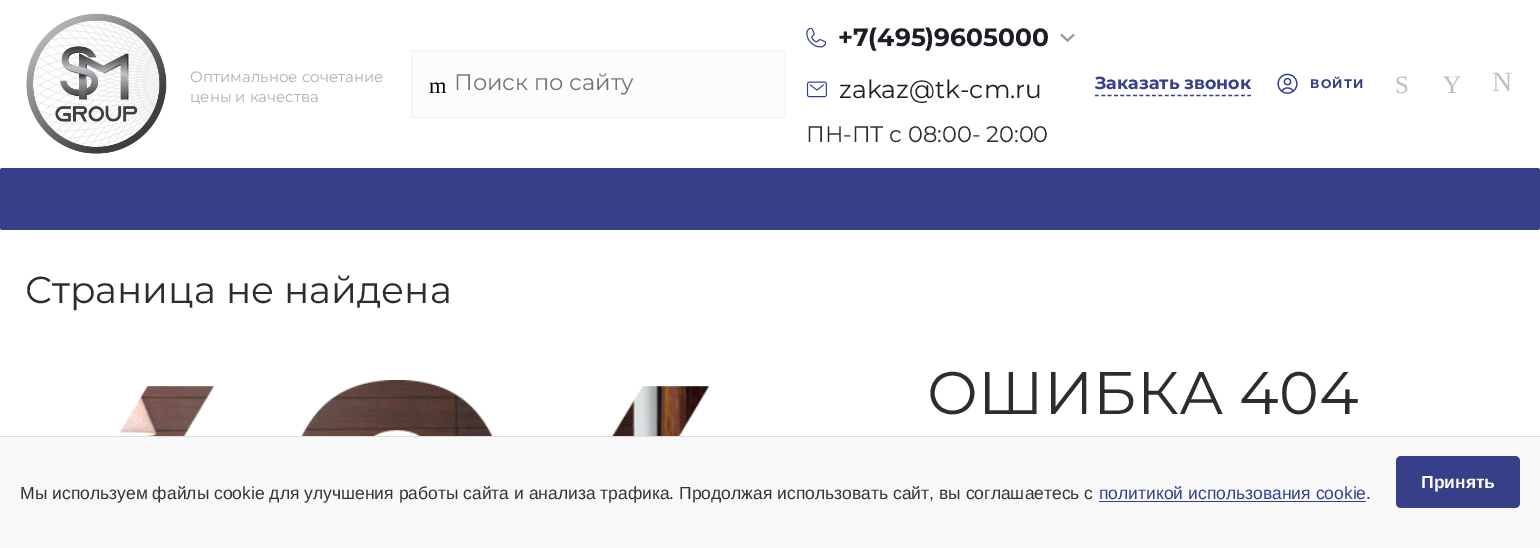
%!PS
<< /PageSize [1540 548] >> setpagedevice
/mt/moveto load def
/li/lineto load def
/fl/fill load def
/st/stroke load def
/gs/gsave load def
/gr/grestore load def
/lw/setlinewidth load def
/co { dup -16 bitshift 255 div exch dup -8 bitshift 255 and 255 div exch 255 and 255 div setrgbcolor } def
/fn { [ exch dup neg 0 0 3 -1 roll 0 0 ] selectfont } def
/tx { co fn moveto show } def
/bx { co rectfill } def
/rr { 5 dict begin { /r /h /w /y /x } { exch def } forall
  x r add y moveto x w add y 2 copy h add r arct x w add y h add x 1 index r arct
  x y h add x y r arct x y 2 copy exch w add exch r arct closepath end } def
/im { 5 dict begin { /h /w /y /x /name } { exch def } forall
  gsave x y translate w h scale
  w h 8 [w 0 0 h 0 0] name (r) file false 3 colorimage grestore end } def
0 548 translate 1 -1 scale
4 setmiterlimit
0 0 1540 548 16#FFFFFF bx
(media/1.raw) 26 13 141 141 im
16#FBFCFD co
411.5 50.5 374 67 2 rr gs fl gr
16#F2F2F2 co
st
(media/2.raw) 806 28 20 20 im
16#989898 co
1.9 lw
1074 34.5 mt 1067.5 40.5 li 1061 34.5 li st
(media/3.raw) 806 81 21 17 im
16#373F89 co
1.2 lw
[3.75 2.6] 0 setdash
1095 95.5 mt 1251 95.5 li st
(media/4.raw) 1277 73 21 21 im
0 168 1540 62 2.5 rr fl
(media/5.raw) 117 380 593 56 im
0 437 1540 111 16#F8F8F8 bx
0 436 1540 1 16#DDDDDD bx
16#373F89 co
1396 456 124 52 5 rr fl
1099 501 267 1 16#373F89 bx
(Оптимальное сочетание) 190 82 /Montserrat-Regular 15 16#B0B0B0 tx
(цены и качества) 190 102 /Montserrat-Regular 15 16#B0B0B0 tx
(m) 429 93 /LiberationSerif-Regular 22.5 16#000000 tx
(Поиск по сайту) 454 90 /Montserrat-Regular 22.5 16#757575 tx
(+7\(495\)9605000) 838 46 /Montserrat-Bold 25 16#1B1E25 tx
(zakaz@tk-cm.ru) 839 98 /Montserrat-Regular 25 16#1B1E25 tx
(ПН-ПТ с 08:00- 20:00) 806 142 /Montserrat-Regular 22.5 16#2D2D2D tx
(Заказать звонок) 1095 89 /Montserrat-Bold 17.5 16#373F89 tx
/Montserrat-Bold 12.5 fn
1310 88 mt 1.25 0 (ВОЙТИ) ashow
(S) 1395 93 /LiberationSerif-Regular 25 16#BEBEBF tx
(Y) 1443 93 /LiberationSerif-Regular 25 16#BEBEBF tx
(N) 1492 91 /LiberationSerif-Regular 28 16#BEBEBF tx
(Страница не найдена) 25 303 /Montserrat-Regular 37.5 16#2D2D2D tx
(ОШИБКА 404) 927 414 /Montserrat-Regular 60 16#2D2D2D tx
(Принять) 1421 488 /LiberationSans-Bold 17.5 16#FFFFFF tx
(Мы используем файлы cookie для улучшения работы сайта и анализа трафика. Продолжая использовать сайт, вы соглашаетесь с) 20 499 /LiberationSans-Regular 17.5 16#333333 tx
(политикой использования cookie) 1099 499 /LiberationSans-Regular 17.5 16#373F89 tx
(.) 1366 499 /LiberationSans-Regular 17.5 16#333333 tx
showpage
